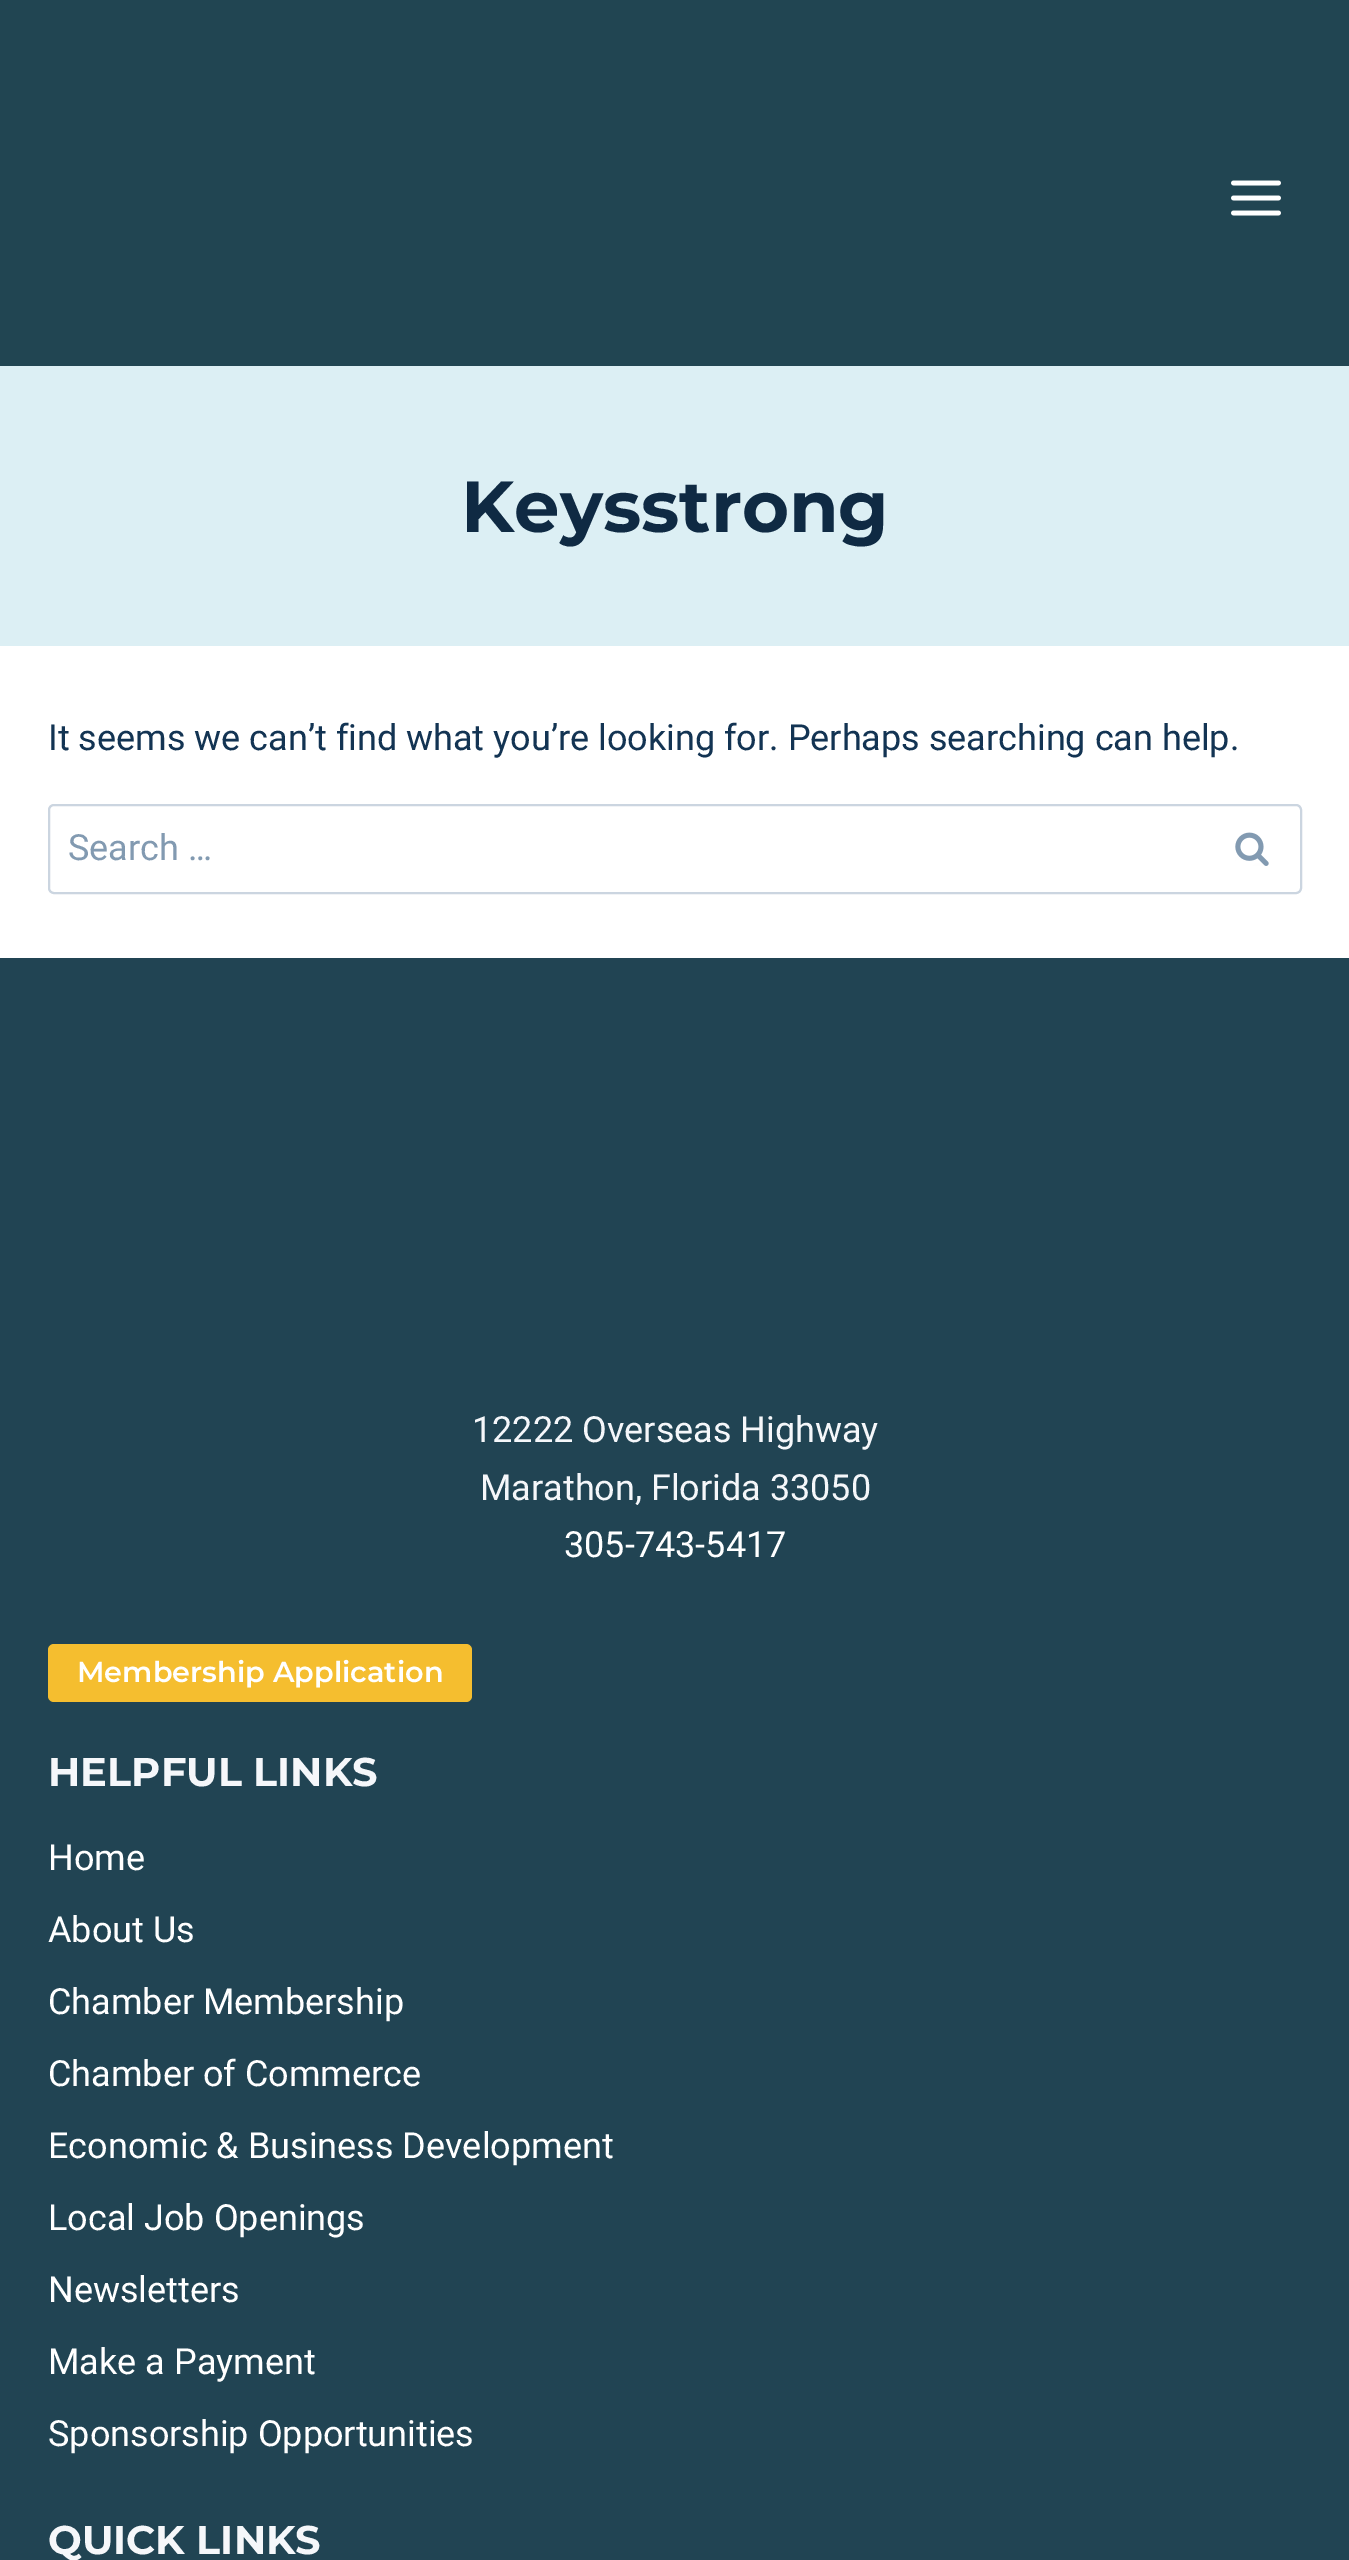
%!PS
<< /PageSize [1349 2560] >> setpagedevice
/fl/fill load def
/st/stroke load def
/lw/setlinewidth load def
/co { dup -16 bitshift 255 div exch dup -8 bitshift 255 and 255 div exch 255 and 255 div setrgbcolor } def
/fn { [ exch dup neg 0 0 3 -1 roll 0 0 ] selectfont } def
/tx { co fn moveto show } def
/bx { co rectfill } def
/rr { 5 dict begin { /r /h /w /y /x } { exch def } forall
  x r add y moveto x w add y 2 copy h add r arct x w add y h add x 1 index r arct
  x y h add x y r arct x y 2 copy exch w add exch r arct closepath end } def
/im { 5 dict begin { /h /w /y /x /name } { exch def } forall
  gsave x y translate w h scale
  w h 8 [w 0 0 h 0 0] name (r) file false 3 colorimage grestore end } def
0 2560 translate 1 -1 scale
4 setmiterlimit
0 0 1349 2560 16#FFFFFF bx
0 0 1349 366 16#214552 bx
(media/1.raw) 1231 180 50 36 im
0 366 1349 280 16#DCEFF4 bx
16#CBD5E0 co
2 lw
49 805 1252 88 5 rr st
(media/2.raw) 1235 832 34 34 im
0 958 1349 1602 16#214453 bx
16#F5BE2F co
48 1644 424 58 6 rr fl
(Keysstrong) 461 532 /Montserrat-Bold 72 16#0F2A43 tx
(It seems we can’t find what you’re looking for. Perhaps searching can help.) 48 750 /Roboto-Regular 36 16#133453 tx
(Search …) 68 860 /Roboto-Regular 36 16#829AB1 tx
(12222 Overseas Highway) 472 1442 /Roboto-Regular 36 16#F5F7FA tx
(Marathon, Florida 33050) 480 1500 /Roboto-Regular 36 16#F5F7FA tx
(305-743-5417) 564 1557 /Roboto-Regular 36 16#FFFFFF tx
(Membership Application) 77 1682 /Montserrat-SemiBold 28.75 16#FFFFFF tx
(HELPFUL LINKS) 48 1786 /Montserrat-Bold 40 16#F5F7FA tx
(Home) 48 1870 /Roboto-Regular 36 16#FFFFFF tx
(About Us) 48 1942 /Roboto-Regular 36 16#FFFFFF tx
(Chamber Membership) 48 2014 /Roboto-Regular 36 16#FFFFFF tx
(Chamber of Commerce) 48 2086 /Roboto-Regular 36 16#FFFFFF tx
(Economic & Business Development) 48 2158 /Roboto-Regular 36 16#FFFFFF tx
(Local Job Openings) 48 2230 /Roboto-Regular 36 16#FFFFFF tx
(Newsletters) 48 2302 /Roboto-Regular 36 16#FFFFFF tx
(Make a Payment) 48 2374 /Roboto-Regular 36 16#FFFFFF tx
(Sponsorship Opportunities) 48 2446 /Roboto-Regular 36 16#FFFFFF tx
(QUICK LINKS) 48 2554 /Montserrat-Bold 40 16#F5F7FA tx
showpage
